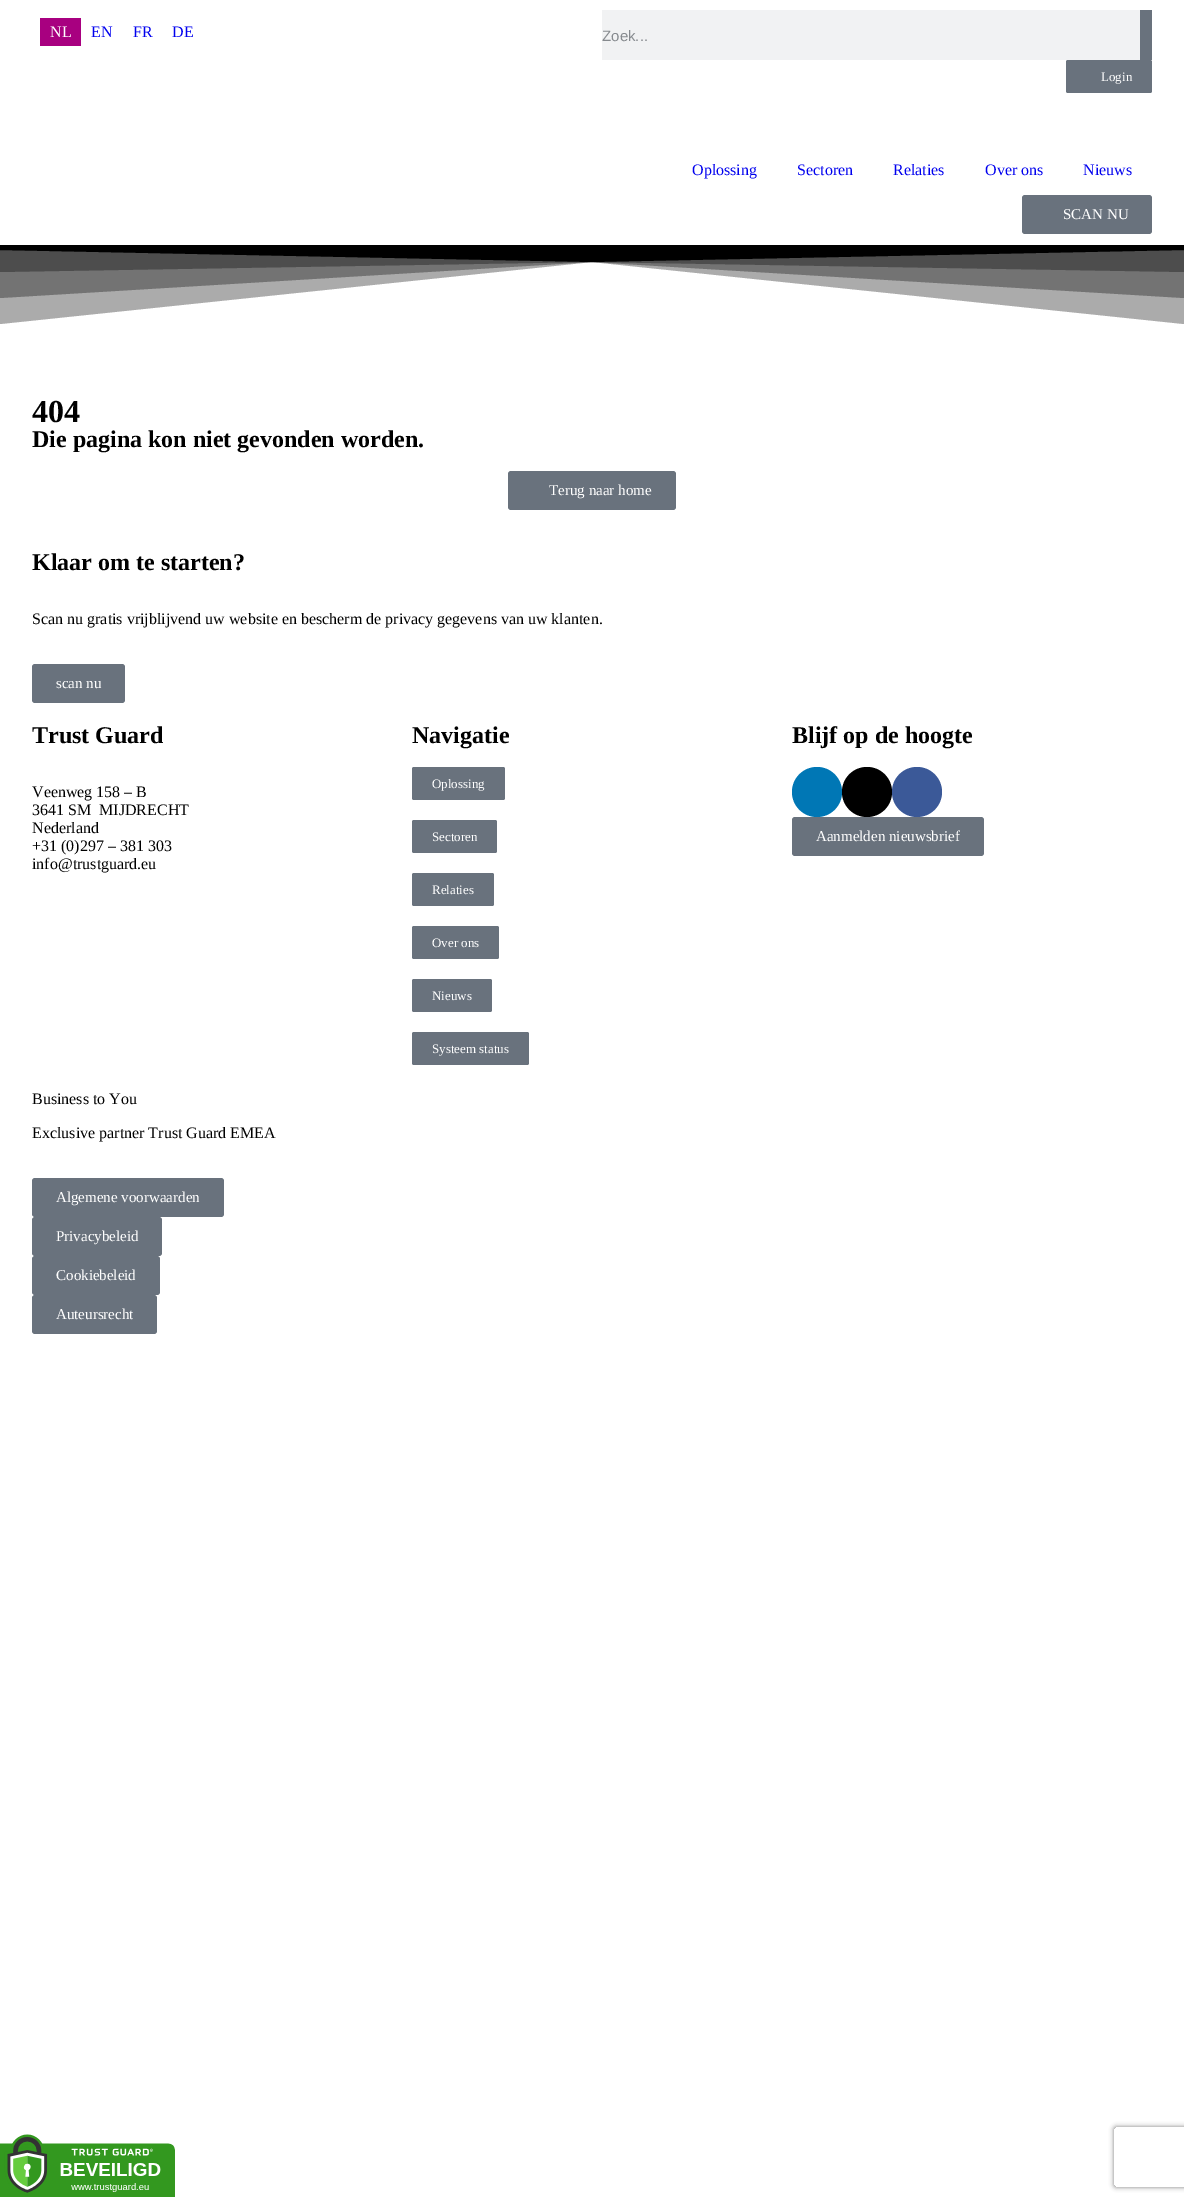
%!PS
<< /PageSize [1184 2201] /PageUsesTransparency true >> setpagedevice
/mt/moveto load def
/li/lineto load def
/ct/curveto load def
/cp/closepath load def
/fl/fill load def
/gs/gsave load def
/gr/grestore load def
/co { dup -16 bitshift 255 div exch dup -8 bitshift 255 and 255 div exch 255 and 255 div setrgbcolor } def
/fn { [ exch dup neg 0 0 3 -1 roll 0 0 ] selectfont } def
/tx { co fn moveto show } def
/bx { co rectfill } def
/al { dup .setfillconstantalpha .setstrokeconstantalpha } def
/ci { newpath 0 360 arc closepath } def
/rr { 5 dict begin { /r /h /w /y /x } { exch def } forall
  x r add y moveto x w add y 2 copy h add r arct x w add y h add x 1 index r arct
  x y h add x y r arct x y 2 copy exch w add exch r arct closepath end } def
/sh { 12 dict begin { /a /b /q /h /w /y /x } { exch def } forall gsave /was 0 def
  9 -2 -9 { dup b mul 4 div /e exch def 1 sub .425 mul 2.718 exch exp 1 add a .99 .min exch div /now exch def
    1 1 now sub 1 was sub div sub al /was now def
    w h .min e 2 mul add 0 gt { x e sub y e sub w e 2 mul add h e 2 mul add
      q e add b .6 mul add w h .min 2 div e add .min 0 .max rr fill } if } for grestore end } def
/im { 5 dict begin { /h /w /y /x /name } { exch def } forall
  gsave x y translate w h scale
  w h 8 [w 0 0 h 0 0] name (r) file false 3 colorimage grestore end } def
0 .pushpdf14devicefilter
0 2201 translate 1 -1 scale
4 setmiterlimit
0 0 1184 2201 16#FFFFFF bx
40 18 41 28 16#A80080 bx
602 10 538 50 16#F1F2F3 bx
1140 10 12 50 16#69727D bx
1066 60 86 33 2 rr fl
1022 195 130 39 3 rr fl
16#ABABAB co
0 245 mt 0 324 li 592 262 li 1184 324 li 1184 245 li cp fl
0.33 al
16#000000 co
0 245 mt 0 298 li 592 262 li 1184 298 li 1184 245 li cp fl
1 al
16#4D4D4D co
0 245 mt 0 272 li 592 262 li 1184 272 li 1184 245 li cp fl
16#000000 co
0 245 mt 0 250 li 592 262 li 1184 250 li 1184 245 li cp fl
16#69727D co
508 471 168 39 3 rr fl
32 664 93 39 3 rr fl
412 767 93 33 2 rr fl
412 820 85 33 2 rr fl
412 873 82 33 2 rr fl
412 926 87 33 2 rr fl
412 979 80 33 2 rr fl
412 1032 117 33 2 rr fl
16#0077B5 co
817 792 25 ci fl
16#000000 co
867 792 25 ci fl
16#3B5998 co
917 792 25 ci fl
16#69727D co
792 817 192 39 3 rr fl
32 1178 192 39 3 rr fl
32 1217 130 39 3 rr fl
32 1256 128 39 3 rr fl
32 1295 125 39 3 rr fl
(media/1.raw) 0 2134 175 63 im
gs
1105 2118 mt 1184 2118 li 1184 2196 li 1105 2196 li cp 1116 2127 mt 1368 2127 li 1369 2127 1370 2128 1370 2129 ct 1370 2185 li 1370 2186 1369 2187 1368 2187 ct 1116 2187 li 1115 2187 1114 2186 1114 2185 ct 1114 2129 li 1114 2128 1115 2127 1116 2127 ct cp eoclip newpath
16#808080 co
1114 2127 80 60 2 2.5 1 sh
gr
(NL) 50 37 /LiberationSerif-Regular 16 16#FFFFFF tx
(EN) 91 37 /LiberationSerif-Regular 16 16#0000EE tx
(FR) 133 37 /LiberationSerif-Regular 16 16#0000EE tx
(DE) 172 37 /LiberationSerif-Regular 16 16#0000EE tx
(Zoek...) 602 41 /LiberationSans-Regular 15 16#868A8E tx
(Login) 1101 81 /LiberationSerif-Regular 13 16#FFFFFF tx
(Oplossing) 692 175 /LiberationSerif-Regular 16 16#0000EE tx
(Sectoren) 797 175 /LiberationSerif-Regular 16 16#0000EE tx
(Relaties) 893 175 /LiberationSerif-Regular 16 16#0000EE tx
(Over ons) 985 175 /LiberationSerif-Regular 16 16#0000EE tx
(Nieuws) 1083 175 /LiberationSerif-Regular 16 16#0000EE tx
(SCAN NU) 1063 219 /LiberationSerif-Regular 15 16#FFFFFF tx
(404) 32 422 /LiberationSerif-Bold 32 16#000000 tx
(Die pagina kon niet gevonden worden.) 32 447 /LiberationSerif-Bold 24 16#000000 tx
(Terug naar home) 549 495 /LiberationSerif-Regular 15 16#FFFFFF tx
(Klaar om te starten?) 32 570 /LiberationSerif-Bold 24 16#000000 tx
(Scan nu gratis vrijblijvend uw website en bescherm de privacy gegevens van uw klanten.) 32 624 /LiberationSerif-Regular 16 16#000000 tx
(scan nu) 56 688 /LiberationSerif-Regular 15 16#FFFFFF tx
(Trust Guard) 32 743 /LiberationSerif-Bold 24 16#000000 tx
(Veenweg 158 – B) 32 797 /LiberationSerif-Regular 16 16#000000 tx
(3641 SM  MIJDRECHT) 32 815 /LiberationSerif-Regular 16 16#000000 tx
(Nederland) 32 833 /LiberationSerif-Regular 16 16#000000 tx
(+31 \(0\)297 – 381 303) 32 851 /LiberationSerif-Regular 16 16#000000 tx
(info@trustguard.eu) 32 869 /LiberationSerif-Regular 16 16#000000 tx
(Business to You) 32 1104 /LiberationSerif-Regular 16 16#000000 tx
(Exclusive partner Trust Guard EMEA) 32 1138 /LiberationSerif-Regular 16 16#000000 tx
(Navigatie) 412 743 /LiberationSerif-Bold 24 16#000000 tx
(Oplossing) 432 788 /LiberationSerif-Regular 13 16#FFFFFF tx
(Sectoren) 432 841 /LiberationSerif-Regular 13 16#FFFFFF tx
(Relaties) 432 894 /LiberationSerif-Regular 13 16#FFFFFF tx
(Over ons) 432 947 /LiberationSerif-Regular 13 16#FFFFFF tx
(Nieuws) 432 1000 /LiberationSerif-Regular 13 16#FFFFFF tx
(Systeem status) 432 1053 /LiberationSerif-Regular 13 16#FFFFFF tx
(Blijf op de hoogte) 792 743 /LiberationSerif-Bold 24 16#000000 tx
(Aanmelden nieuwsbrief) 816 841 /LiberationSerif-Regular 15 16#FFFFFF tx
(Algemene voorwaarden) 56 1202 /LiberationSerif-Regular 15 16#FFFFFF tx
(Privacybeleid) 56 1241 /LiberationSerif-Regular 15 16#FFFFFF tx
(Cookiebeleid) 56 1280 /LiberationSerif-Regular 15 16#FFFFFF tx
(Auteursrecht) 56 1319 /LiberationSerif-Regular 15 16#FFFFFF tx
.poppdf14devicefilter showpage
